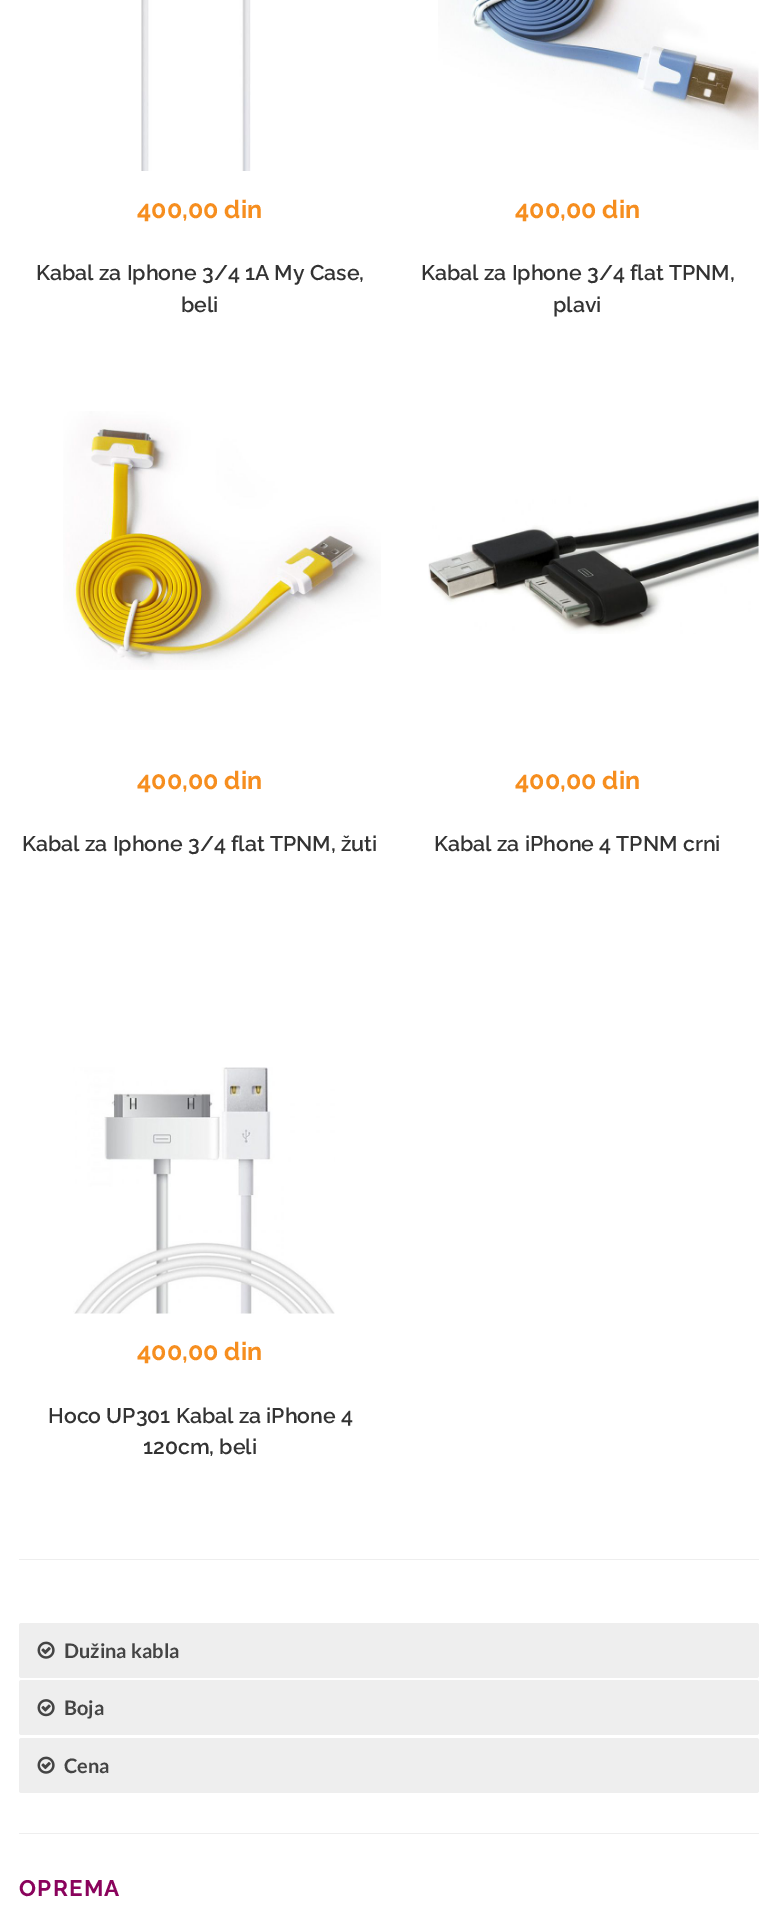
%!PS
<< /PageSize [777 1920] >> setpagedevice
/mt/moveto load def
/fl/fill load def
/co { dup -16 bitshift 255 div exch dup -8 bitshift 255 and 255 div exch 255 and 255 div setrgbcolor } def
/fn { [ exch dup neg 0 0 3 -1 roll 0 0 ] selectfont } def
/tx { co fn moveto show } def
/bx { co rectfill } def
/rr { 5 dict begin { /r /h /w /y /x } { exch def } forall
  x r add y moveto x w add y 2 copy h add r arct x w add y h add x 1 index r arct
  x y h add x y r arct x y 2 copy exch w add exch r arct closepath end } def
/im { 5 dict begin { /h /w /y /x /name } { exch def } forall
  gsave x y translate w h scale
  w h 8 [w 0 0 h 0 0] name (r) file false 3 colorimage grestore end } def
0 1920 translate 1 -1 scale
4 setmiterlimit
0 0 777 1920 16#FFFFFF bx
19 1559 740 1 16#EEEEEE bx
(media/1.raw) 141 0 110 171 im
(media/2.raw) 438 0 321 150 im
(media/3.raw) 63 411 318 259 im
(media/4.raw) 428 496 331 138 im
(media/5.raw) 73 1067 262 247 im
19 1623 740 55 2.5 rr fl
(media/6.raw) 37 1641 18 18 im
19 1680 740 55 2.5 rr fl
(media/7.raw) 37 1699 18 18 im
19 1738 740 55 2.5 rr fl
(media/6.raw) 37 1756 18 18 im
19 1833 740 1 16#EEEEEE bx
(400,00 din) 137 218 /Raleway-Bold 25 16#F68E1F tx
(Kabal za Iphone 3/4 1A My Case,) 36 280 /Raleway-SemiBold 21.25 16#333333 tx
(beli) 181 312 /Raleway-SemiBold 21.25 16#333333 tx
(400,00 din) 515 218 /Raleway-Bold 25 16#F68E1F tx
(Kabal za Iphone 3/4 flat TPNM,) 421 280 /Raleway-SemiBold 21.25 16#333333 tx
(plavi) 553 312 /Raleway-SemiBold 21.25 16#333333 tx
(400,00 din) 137 789 /Raleway-Bold 25 16#F68E1F tx
(Kabal za Iphone 3/4 flat TPNM, žuti) 22 851 /Raleway-SemiBold 21.25 16#333333 tx
(400,00 din) 515 789 /Raleway-Bold 25 16#F68E1F tx
(Kabal za iPhone 4 TPNM crni) 434 851 /Raleway-SemiBold 21.25 16#333333 tx
(400,00 din) 137 1360 /Raleway-Bold 25 16#F68E1F tx
(Hoco UP301 Kabal za iPhone 4) 48 1423 /Raleway-SemiBold 21.25 16#333333 tx
(120cm, beli) 143 1454 /Raleway-SemiBold 21.25 16#333333 tx
(Dužina kabla) 64 1658 /Lato-Bold 20 16#444444 tx
(Boja) 64 1715 /Lato-Bold 20 16#444444 tx
(Cena) 64 1773 /Lato-Bold 20 16#444444 tx
/Raleway-Bold 22.5 fn
16#8A035C co
19 1896 mt 1.25 0 (OPREMA) ashow
showpage
